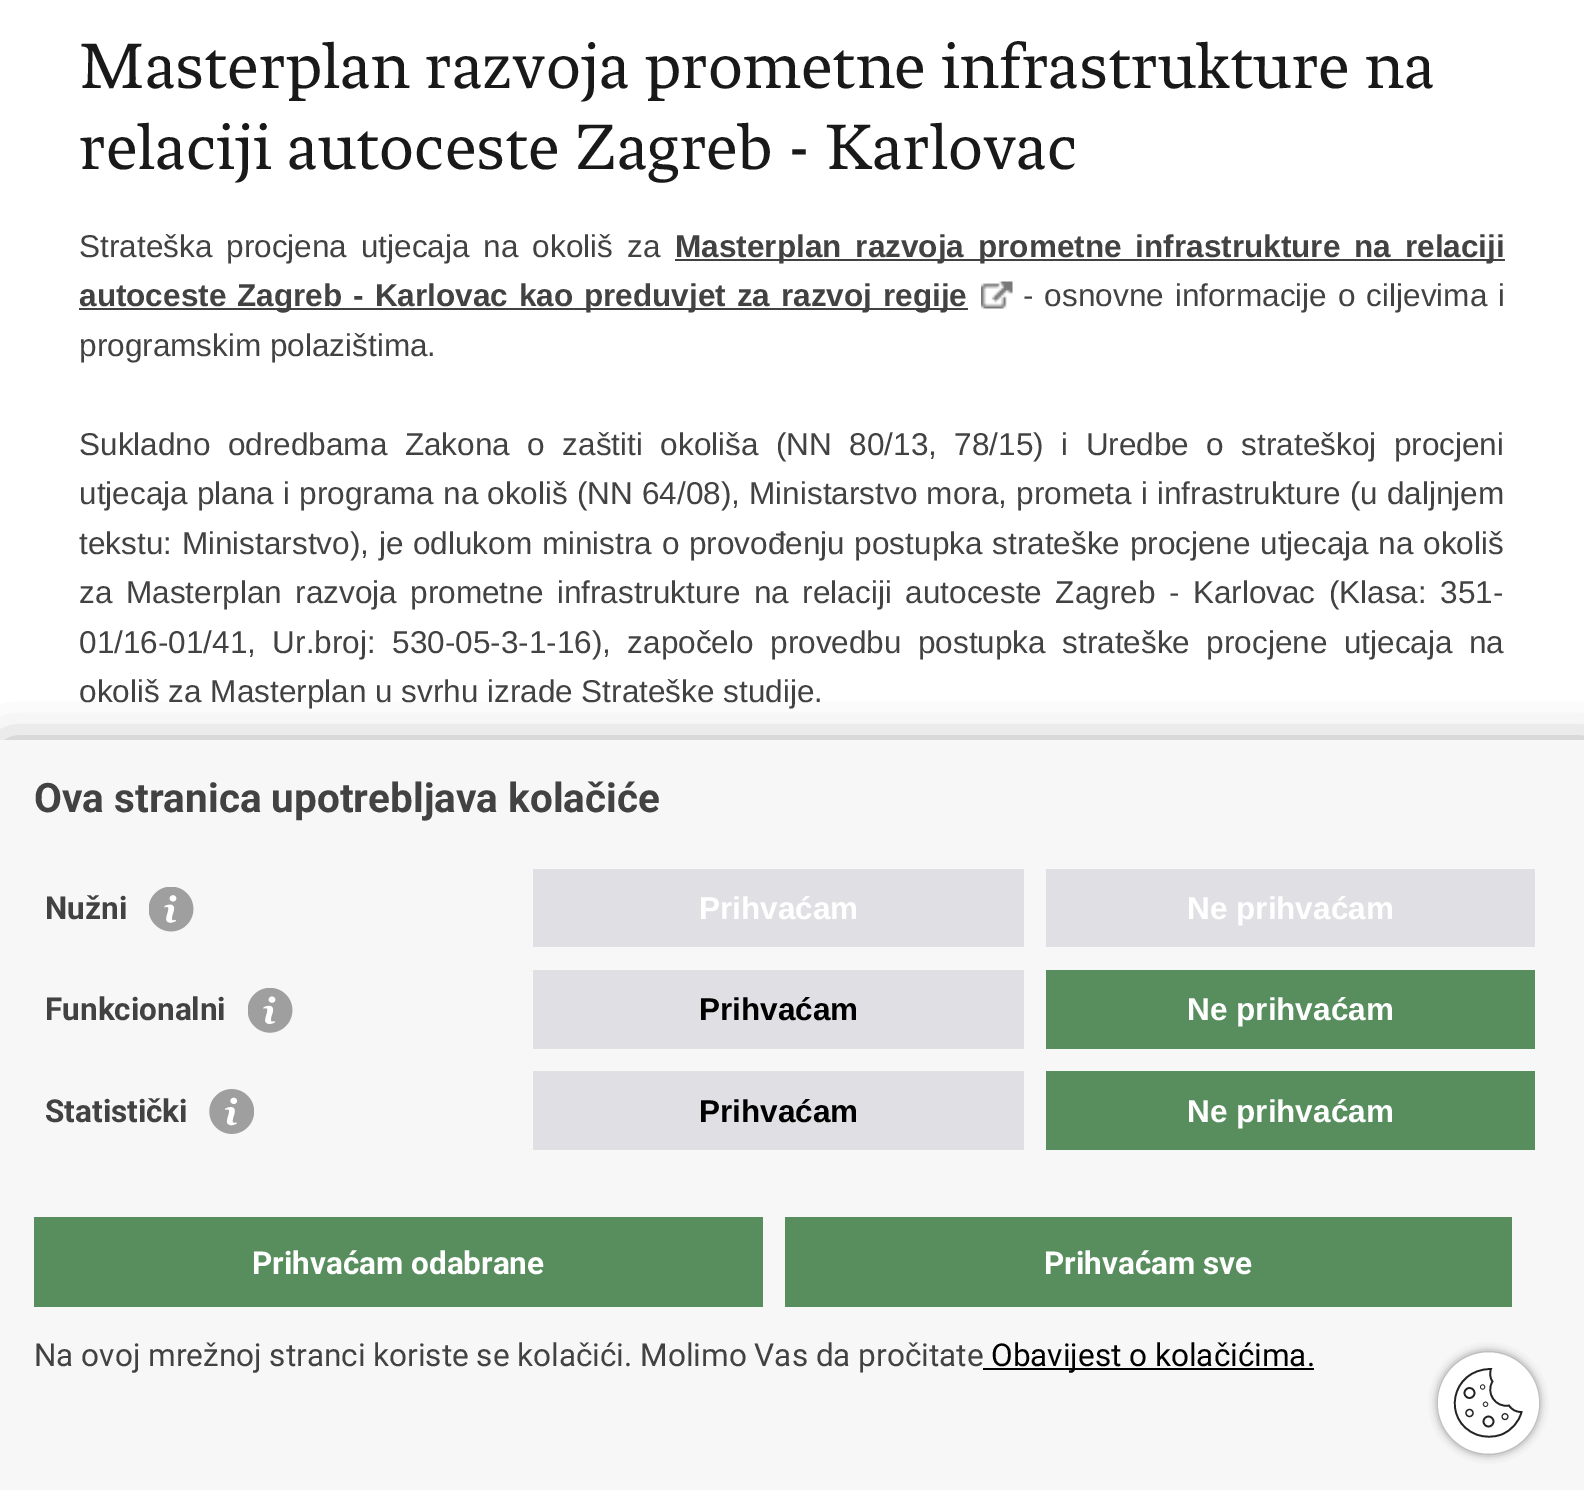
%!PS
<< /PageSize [1584 1490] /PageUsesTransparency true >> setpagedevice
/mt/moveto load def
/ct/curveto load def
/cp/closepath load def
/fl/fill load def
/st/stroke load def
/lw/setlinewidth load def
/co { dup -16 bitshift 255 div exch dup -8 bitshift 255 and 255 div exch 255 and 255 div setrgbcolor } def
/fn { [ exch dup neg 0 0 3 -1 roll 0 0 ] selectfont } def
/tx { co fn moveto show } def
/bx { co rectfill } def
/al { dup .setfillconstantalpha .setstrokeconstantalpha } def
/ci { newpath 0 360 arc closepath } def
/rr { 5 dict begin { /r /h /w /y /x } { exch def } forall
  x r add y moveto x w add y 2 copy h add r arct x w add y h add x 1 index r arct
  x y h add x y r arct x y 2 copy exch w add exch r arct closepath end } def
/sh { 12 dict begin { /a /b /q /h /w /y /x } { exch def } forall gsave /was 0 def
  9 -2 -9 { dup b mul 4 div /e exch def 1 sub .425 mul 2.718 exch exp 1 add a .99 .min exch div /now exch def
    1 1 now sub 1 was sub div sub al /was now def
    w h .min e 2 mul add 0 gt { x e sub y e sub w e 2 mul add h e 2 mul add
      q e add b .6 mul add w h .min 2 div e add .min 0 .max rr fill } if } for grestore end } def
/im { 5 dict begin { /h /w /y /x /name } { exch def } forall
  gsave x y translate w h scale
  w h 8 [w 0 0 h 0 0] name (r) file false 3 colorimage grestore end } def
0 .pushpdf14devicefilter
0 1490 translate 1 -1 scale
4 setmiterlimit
0 0 1584 1490 16#FFFFFF bx
675 259 830 2 16#424242 bx
79 308 889 2 16#424242 bx
(media/1.raw) 981 281 32 28 im
16#000000 co
7 752 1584 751 0 22.5 .5 sh
0 740 1584 750 16#F7F7F7 bx
(media/2.raw) 149 887 45 45 im
533 869 491 78 16#E0E0E4 bx
1046 869 489 78 16#E0E0E4 bx
(media/3.raw) 248 988 45 45 im
533 970 491 79 16#E0E0E4 bx
1046 970 489 79 16#588E5E bx
(media/4.raw) 209 1089 45 45 im
533 1071 491 79 16#E0E0E4 bx
1046 1071 489 79 16#588E5E bx
34 1217 729 90 16#588E5E bx
785 1217 727 90 16#588E5E bx
983 1368 331 2 16#000000 bx
16#858585 co
1438 1352 101 102 50.5 4.5 1 sh
16#FFFFFF co
1488.5 1403 50.5 ci fl
16#222323 co
1.7 lw
1521 1412 mt 1516 1412 1511.5 1409.5 1509 1405.5 ct 1495.5 1408 1485.5 1393 1492.5 1381.5 ct 1490 1378 1489.5 1373 1491 1369 ct 1450.5 1369 1441.5 1421 1476.5 1434.5 ct 1484.5 1437.5 1493.5 1437.5 1501.5 1434.5 ct 1511.5 1430.5 1519 1422 1521.5 1412 ct cp st
1469.5 1393 5 ci st
1488.5 1421.5 5 ci st
1.2 lw
1469.5 1413 3.5 ci st
1 lw
1505 1416.6 2.9 ci st
.7 lw
1485.5 1404.3 2.2 ci st
1482.6 1387 2.2 ci st
(Masterplan razvoja prometne infrastrukture na) 79 88 /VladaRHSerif-Regular 67.5 16#191919 tx
(relaciji autoceste Zagreb - Karlovac) 79 169 /VladaRHSerif-Regular 67.5 16#191919 tx
/LiberationSans-Regular 31.5 fn
16#424242 co
79 257 mt 5.25 0 32 (Strateška procjena utjecaja na okoliš za) widthshow
/LiberationSans-Bold 31.5 fn
675 257 mt 5.25 0 32 (Masterplan razvoja prometne infrastrukture na relaciji) widthshow
79 306 mt 2.25 0 32 (autoceste Zagreb - Karlovac kao preduvjet za razvoj regije) widthshow
/LiberationSans-Regular 31.5 fn
1023 306 mt 2.25 0 32 (- osnovne informacije o ciljevima i) widthshow
(programskim polazištima.) 79 356 /LiberationSans-Regular 31.5 16#424242 tx
79 455 mt 8.75 0 32 (Sukladno odredbama Zakona o zaštiti okoliša \(NN 80/13, 78/15\) i Uredbe o strateškoj procjeni) widthshow
79 504 mt .4 0 32 (utjecaja plana i programa na okoliš \(NN 64/08\), Ministarstvo mora, prometa i infrastrukture \(u daljnjem) widthshow
79 554 mt 1 0 32 (tekstu: Ministarstvo\), je odlukom ministra o provođenju postupka strateške procjene utjecaja na okoliš) widthshow
79 603 mt 4.75 0 32 (za Masterplan razvoja prometne infrastrukture na relaciji autoceste Zagreb - Karlovac \(Klasa: 351-) widthshow
79 653 mt 7.75 0 32 (01/16-01/41, Ur.broj: 530-05-3-1-16\), započelo provedbu postupka strateške procjene utjecaja na) widthshow
(okoliš za Masterplan u svrhu izrade Strateške studije.) 79 702 /LiberationSans-Regular 31.5 16#424242 tx
(Ova stranica upotrebljava kolačiće) 34 812 /Roboto-Bold 40.5 16#424242 tx
(Nužni) 45 919 /Roboto-Bold 31.5 16#424242 tx
(Prihvaćam) 699 919 /LiberationSans-Bold 31.5 16#FFFFFF tx
(Ne prihvaćam) 1187 919 /LiberationSans-Bold 31.5 16#FFFFFF tx
(Funkcionalni) 45 1020 /Roboto-Bold 31.5 16#424242 tx
(Prihvaćam) 699 1020 /LiberationSans-Bold 31.5 16#000000 tx
(Ne prihvaćam) 1187 1020 /LiberationSans-Bold 31.5 16#FFFFFF tx
(Statistički) 45 1122 /Roboto-Bold 31.5 16#424242 tx
(Prihvaćam) 699 1122 /LiberationSans-Bold 31.5 16#000000 tx
(Ne prihvaćam) 1187 1122 /LiberationSans-Bold 31.5 16#FFFFFF tx
(Prihvaćam odabrane) 252 1274 /Roboto-Bold 31.5 16#FFFFFF tx
(Prihvaćam sve) 1044 1274 /Roboto-Bold 31.5 16#FFFFFF tx
(Na ovoj mrežnoj stranci koriste se kolačići. Molimo Vas da pročitate) 34 1366 /Roboto-Regular 31.5 16#424242 tx
(Obavijest o kolačićima.) 991 1366 /Roboto-Regular 31.5 16#000000 tx
.poppdf14devicefilter showpage
